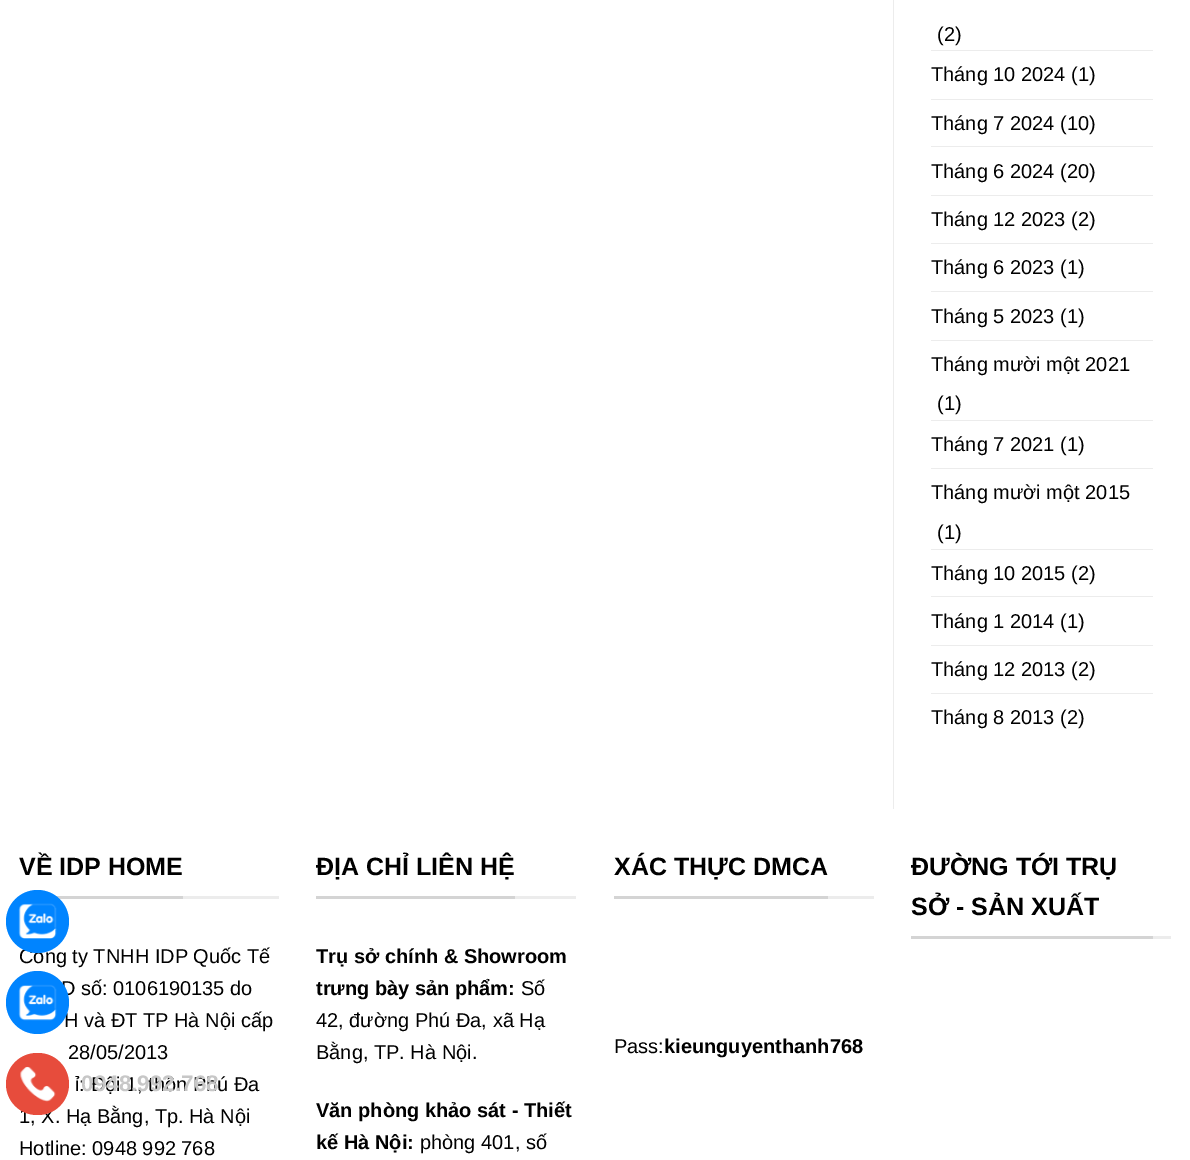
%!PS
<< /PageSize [1190 1160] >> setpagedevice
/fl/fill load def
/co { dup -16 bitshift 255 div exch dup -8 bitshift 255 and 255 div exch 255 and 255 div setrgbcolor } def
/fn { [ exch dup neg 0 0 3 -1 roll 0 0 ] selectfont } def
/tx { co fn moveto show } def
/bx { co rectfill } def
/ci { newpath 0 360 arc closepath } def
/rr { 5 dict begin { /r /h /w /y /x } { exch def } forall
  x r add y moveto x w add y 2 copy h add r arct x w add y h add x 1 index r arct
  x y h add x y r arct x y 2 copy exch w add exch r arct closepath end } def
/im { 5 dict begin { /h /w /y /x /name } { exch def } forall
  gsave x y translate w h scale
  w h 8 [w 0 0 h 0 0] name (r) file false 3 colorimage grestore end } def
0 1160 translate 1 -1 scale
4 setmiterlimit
0 0 1190 1160 16#FFFFFF bx
893 0 1 809 16#ECECEC bx
931 50 222 1 16#ECECEC bx
931 99 222 1 16#ECECEC bx
931 146 222 1 16#ECECEC bx
931 195 222 1 16#ECECEC bx
931 243 222 1 16#ECECEC bx
931 291 222 1 16#ECECEC bx
931 340 222 1 16#ECECEC bx
931 420 222 1 16#ECECEC bx
931 468 222 1 16#ECECEC bx
931 549 222 1 16#ECECEC bx
931 596 222 1 16#ECECEC bx
931 645 222 1 16#ECECEC bx
931 693 222 1 16#ECECEC bx
183 896 96 3 16#ECECEC bx
56 896 127 3 16#D4D4D4 bx
515 896 61 3 16#ECECEC bx
316 896 199 3 16#D4D4D4 bx
828 896 46 3 16#ECECEC bx
614 896 214 3 16#D4D4D4 bx
1153 936 18 3 16#ECECEC bx
911 936 242 3 16#D4D4D4 bx
(\(2\)) 937 41 /LiberationSans-Regular 20 16#000000 tx
(Tháng 10 2024 \(1\)) 931 81 /LiberationSans-Regular 20 16#000000 tx
(Tháng 7 2024 \(10\)) 931 130 /LiberationSans-Regular 20 16#000000 tx
(Tháng 6 2024 \(20\)) 931 178 /LiberationSans-Regular 20 16#000000 tx
(Tháng 12 2023 \(2\)) 931 226 /LiberationSans-Regular 20 16#000000 tx
(Tháng 6 2023 \(1\)) 931 274 /LiberationSans-Regular 20 16#000000 tx
(Tháng 5 2023 \(1\)) 931 323 /LiberationSans-Regular 20 16#000000 tx
(Tháng mười một 2021) 931 371 /LiberationSans-Regular 20 16#000000 tx
(\(1\)) 937 410 /LiberationSans-Regular 20 16#000000 tx
(Tháng 7 2021 \(1\)) 931 451 /LiberationSans-Regular 20 16#000000 tx
(Tháng mười một 2015) 931 499 /LiberationSans-Regular 20 16#000000 tx
(\(1\)) 937 539 /LiberationSans-Regular 20 16#000000 tx
(Tháng 10 2015 \(2\)) 931 580 /LiberationSans-Regular 20 16#000000 tx
(Tháng 1 2014 \(1\)) 931 628 /LiberationSans-Regular 20 16#000000 tx
(Tháng 12 2013 \(2\)) 931 676 /LiberationSans-Regular 20 16#000000 tx
(Tháng 8 2013 \(2\)) 931 724 /LiberationSans-Regular 20 16#000000 tx
(VỀ IDP HOME) 19 875 /LiberationSans-Bold 25 16#000000 tx
(Công ty TNHH IDP Quốc Tế) 19 963 /LiberationSans-Regular 20 16#000000 tx
(D số: 0106190135 do) 61 995 /LiberationSans-Regular 20 16#000000 tx
(H và ĐT TP Hà Nội cấp) 64 1027 /LiberationSans-Regular 20 16#000000 tx
(28/05/2013) 68 1059 /LiberationSans-Regular 20 16#000000 tx
(ỉ: Đội 1, thôn Phú Đa) 75 1091 /LiberationSans-Regular 20 16#000000 tx
(1, X. Hạ Bằng, Tp. Hà Nội) 19 1123 /LiberationSans-Regular 20 16#000000 tx
(Hotline: 0948 992 768) 19 1155 /LiberationSans-Regular 20 16#000000 tx
(ĐỊA CHỈ LIÊN HỆ) 316 875 /LiberationSans-Bold 25 16#000000 tx
(Trụ sở chính & Showroom) 316 963 /LiberationSans-Bold 20 16#000000 tx
(trưng bày sản phẩm:) 316 995 /LiberationSans-Bold 20 16#000000 tx
(Số) 521 995 /LiberationSans-Regular 20 16#000000 tx
(42, đường Phú Đa, xã Hạ) 316 1027 /LiberationSans-Regular 20 16#000000 tx
(Bằng, TP. Hà Nội.) 316 1059 /LiberationSans-Regular 20 16#000000 tx
(Văn phòng khảo sát - Thiết) 316 1117 /LiberationSans-Bold 20 16#000000 tx
(kế Hà Nội:) 316 1149 /LiberationSans-Bold 20 16#000000 tx
(phòng 401, số) 420 1149 /LiberationSans-Regular 20 16#000000 tx
(XÁC THỰC DMCA) 614 875 /LiberationSans-Bold 25 16#000000 tx
(Pass:) 614 1053 /LiberationSans-Regular 20 16#000000 tx
(kieunguyenthanh768) 664 1053 /LiberationSans-Bold 20 16#000000 tx
(ĐƯỜNG TỚI TRỤ) 911 875 /LiberationSans-Bold 25 16#000000 tx
(SỞ - SẢN XUẤT) 911 915 /LiberationSans-Bold 25 16#000000 tx
16#0084FF co
37.5 921.5 31.5 ci fl
(media/1.raw) 18 903 39 36 im
37.5 1002.5 31.5 ci fl
(media/2.raw) 18 984 39 37 im
16#E74C3C co
6 1053 63 62 31 rr fl
(media/3.raw) 20 1066 36 36 im
(0948.992.768) 81 1091 /LiberationSans-Bold 22.5 16#C7C7C7 tx
showpage
